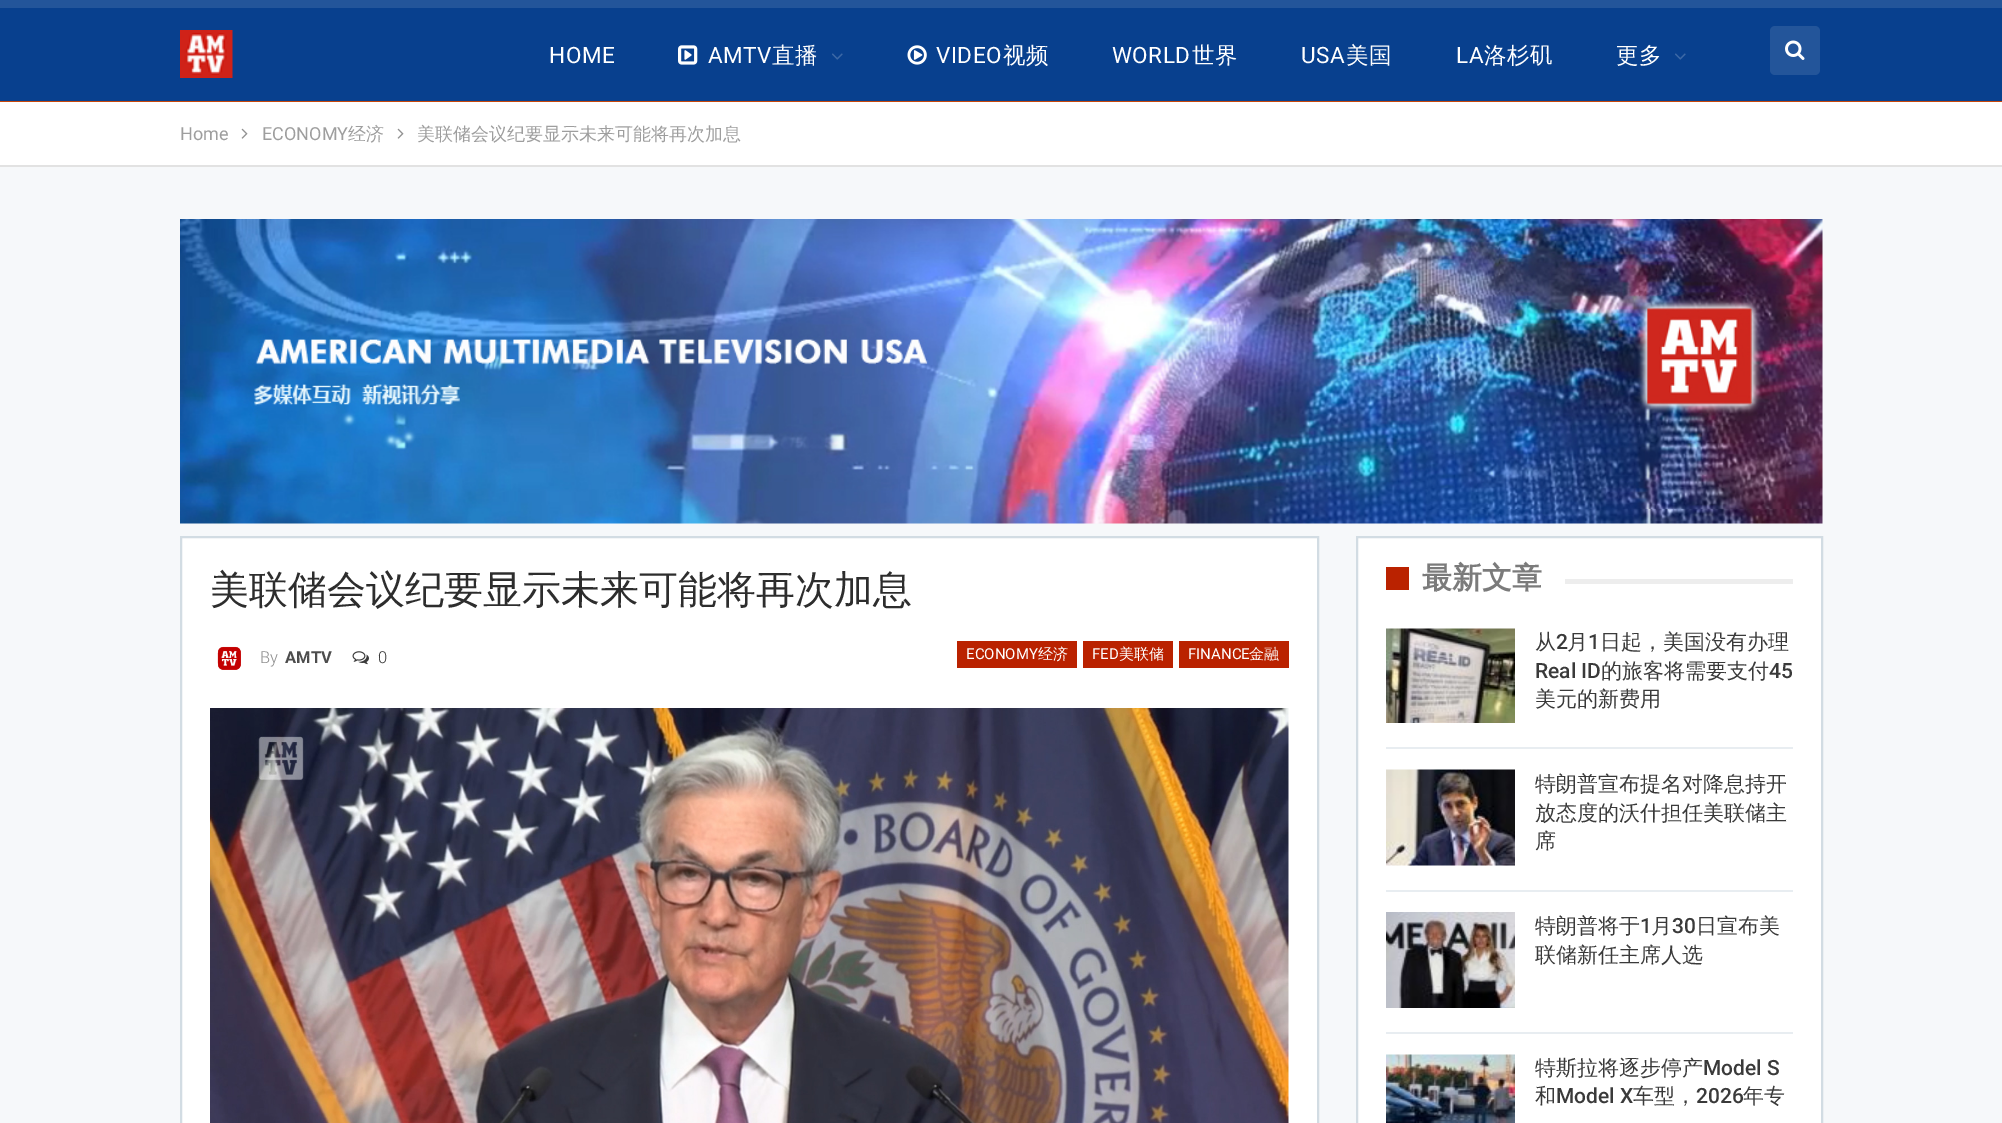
%!PS
<< /PageSize [2002 1123] >> setpagedevice
/mt/moveto load def
/li/lineto load def
/cp/closepath load def
/fl/fill load def
/st/stroke load def
/gs/gsave load def
/gr/grestore load def
/lw/setlinewidth load def
/co { dup -16 bitshift 255 div exch dup -8 bitshift 255 and 255 div exch 255 and 255 div setrgbcolor } def
/fn { [ exch dup neg 0 0 3 -1 roll 0 0 ] selectfont } def
/tx { co fn moveto show } def
/bx { co rectfill } def
/rr { 5 dict begin { /r /h /w /y /x } { exch def } forall
  x r add y moveto x w add y 2 copy h add r arct x w add y h add x 1 index r arct
  x y h add x y r arct x y 2 copy exch w add exch r arct closepath end } def
/im { 5 dict begin { /h /w /y /x /name } { exch def } forall
  gsave x y translate w h scale
  w h 8 [w 0 0 h 0 0] name (r) file false 3 colorimage grestore end } def
0 1123 translate 1 -1 scale
4 setmiterlimit
0 0 2002 1123 16#F6F8FA bx
0 8 2002 93 16#08408E bx
0 0 2002 8 16#23559A bx
0 101 2002 1 16#C6470B bx
(media/1.raw) 180 30 53 48 im
(media/2.raw) 678 45 20 20 im
(media/3.raw) 832 53 11 7 im
(media/4.raw) 907 45 20 20 im
(media/3.raw) 1675 53 11 7 im
16#23559A co
1770 26 50 49 5 rr fl
(media/5.raw) 1785 40 20 20 im
0 102 2002 63 16#FFFFFF bx
0 165 2002 2 16#E2E2E2 bx
(media/6.raw) 241 128 7 11 im
(media/6.raw) 397 128 7 11 im
(media/7.raw) 180 219 1643 305 im
16#FFFFFF co
181 537 mt 1318 537 li 1318 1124 li 181 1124 li cp gs fl gr
16#D2DCE3 co
2 lw
st
(media/8.raw) 217 646 24 24 im
(media/9.raw) 352 651 17 14 im
957 641 120 27 16#BA2200 bx
1083 641 90 27 16#BA2200 bx
1179 641 110 27 16#BA2200 bx
(media/10.raw) 210 708 1079 415 im
16#FFFFFF co
1357 537 mt 1822 537 li 1822 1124 li 1357 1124 li cp gs fl gr
16#D2DCE3 co
st
1386 567 23 23 16#BA2200 bx
1565 579 228 5 16#EDEDED bx
1386 747 407 2 16#E8EDF1 bx
(media/11.raw) 1386 628 129 95 im
1386 890 407 2 16#E8EDF1 bx
(media/12.raw) 1386 769 129 97 im
1386 1032 407 2 16#E8EDF1 bx
(media/13.raw) 1386 912 129 96 im
(media/14.raw) 1386 1054 129 69 im
/Roboto-Regular 22.5 fn
16#FFFFFF co
549 63 mt .5 0 (HOME) ashow
708 63 mt .5 0 (AMTV) ashow
/WenQuanYiZenHei-Medium 22.5 fn
772 63 mt .5 0 (直播) ashow
/Roboto-Regular 22.5 fn
936 63 mt .5 0 (VIDEO) ashow
/WenQuanYiZenHei-Medium 22.5 fn
1003 63 mt .5 0 (视频) ashow
/Roboto-Regular 22.5 fn
1112 63 mt .5 0 (WORLD) ashow
/WenQuanYiZenHei-Medium 22.5 fn
1192 63 mt .5 0 (世界) ashow
/Roboto-Regular 22.5 fn
1301 63 mt .5 0 (USA) ashow
/WenQuanYiZenHei-Medium 22.5 fn
1346 63 mt .5 0 (美国) ashow
/Roboto-Regular 22.5 fn
1456 63 mt .5 0 (LA) ashow
/WenQuanYiZenHei-Medium 22.5 fn
1484 63 mt .5 0 (洛杉矶) ashow
1616 63 mt .5 0 (更多) ashow
(Home) 180 140 /Roboto-Regular 18 16#9E9E9E tx
(ECONOMY) 262 140 /Roboto-Regular 18 16#9E9E9E tx
(经济) 348 140 /WenQuanYiZenHei-Medium 18 16#9E9E9E tx
(美联储会议纪要显示未来可能将再次加息) 417 140 /WenQuanYiZenHei-Medium 18 16#9E9E9E tx
(美联储会议纪要显示未来可能将再次加息) 210 603 /WenQuanYiZenHei-Medium 39 16#2D2D2D tx
(By) 260 663 /Roboto-Light 16.5 16#8F8F8F tx
(AMTV) 285 663 /Roboto-Bold 16.5 16#4D4D4D tx
(0) 378 663 /Roboto-Light 16.5 16#3A3A3A tx
(ECONOMY) 966 659 /Roboto-Regular 15 16#FFFFFF tx
(经济) 1038 659 /WenQuanYiZenHei-Medium 15 16#FFFFFF tx
(FED) 1092 659 /Roboto-Regular 15 16#FFFFFF tx
(美联储) 1119 659 /WenQuanYiZenHei-Medium 15 16#FFFFFF tx
(FINANCE) 1188 659 /Roboto-Regular 15 16#FFFFFF tx
(金融) 1249 659 /WenQuanYiZenHei-Medium 15 16#FFFFFF tx
(最新文章) 1422 588 /WenQuanYiZenHei-Bold 30 16#7B7B7B tx
(从) 1535 649 /WenQuanYiZenHei-Medium 21 16#3A3A3A tx
(2) 1556 649 /Roboto-Medium 21 16#3A3A3A tx
(月) 1567 649 /WenQuanYiZenHei-Medium 21 16#3A3A3A tx
(1) 1588 649 /Roboto-Medium 21 16#3A3A3A tx
(日起，美国没有办理) 1600 649 /WenQuanYiZenHei-Medium 21 16#3A3A3A tx
(Real ID) 1535 678 /Roboto-Medium 21 16#3A3A3A tx
(的旅客将需要支付) 1601 678 /WenQuanYiZenHei-Medium 21 16#3A3A3A tx
(45) 1769 678 /Roboto-Medium 21 16#3A3A3A tx
(美元的新费用) 1535 706 /WenQuanYiZenHei-Medium 21 16#3A3A3A tx
(特朗普宣布提名对降息持开) 1535 791 /WenQuanYiZenHei-Medium 21 16#3A3A3A tx
(放态度的沃什担任美联储主) 1535 820 /WenQuanYiZenHei-Medium 21 16#3A3A3A tx
(席) 1535 848 /WenQuanYiZenHei-Medium 21 16#3A3A3A tx
(特朗普将于) 1535 933 /WenQuanYiZenHei-Medium 21 16#3A3A3A tx
(1) 1640 933 /Roboto-Medium 21 16#3A3A3A tx
(月) 1651 933 /WenQuanYiZenHei-Medium 21 16#3A3A3A tx
(30) 1672 933 /Roboto-Medium 21 16#3A3A3A tx
(日宣布美) 1696 933 /WenQuanYiZenHei-Medium 21 16#3A3A3A tx
(联储新任主席人选) 1535 962 /WenQuanYiZenHei-Medium 21 16#3A3A3A tx
(特斯拉将逐步停产) 1535 1075 /WenQuanYiZenHei-Medium 21 16#3A3A3A tx
(Model S) 1703 1075 /Roboto-Medium 21 16#3A3A3A tx
(和) 1535 1103 /WenQuanYiZenHei-Medium 21 16#3A3A3A tx
(Model X) 1556 1103 /Roboto-Medium 21 16#3A3A3A tx
(车型，) 1633 1103 /WenQuanYiZenHei-Medium 21 16#3A3A3A tx
(2026) 1696 1103 /Roboto-Medium 21 16#3A3A3A tx
(年专) 1743 1103 /WenQuanYiZenHei-Medium 21 16#3A3A3A tx
showpage
